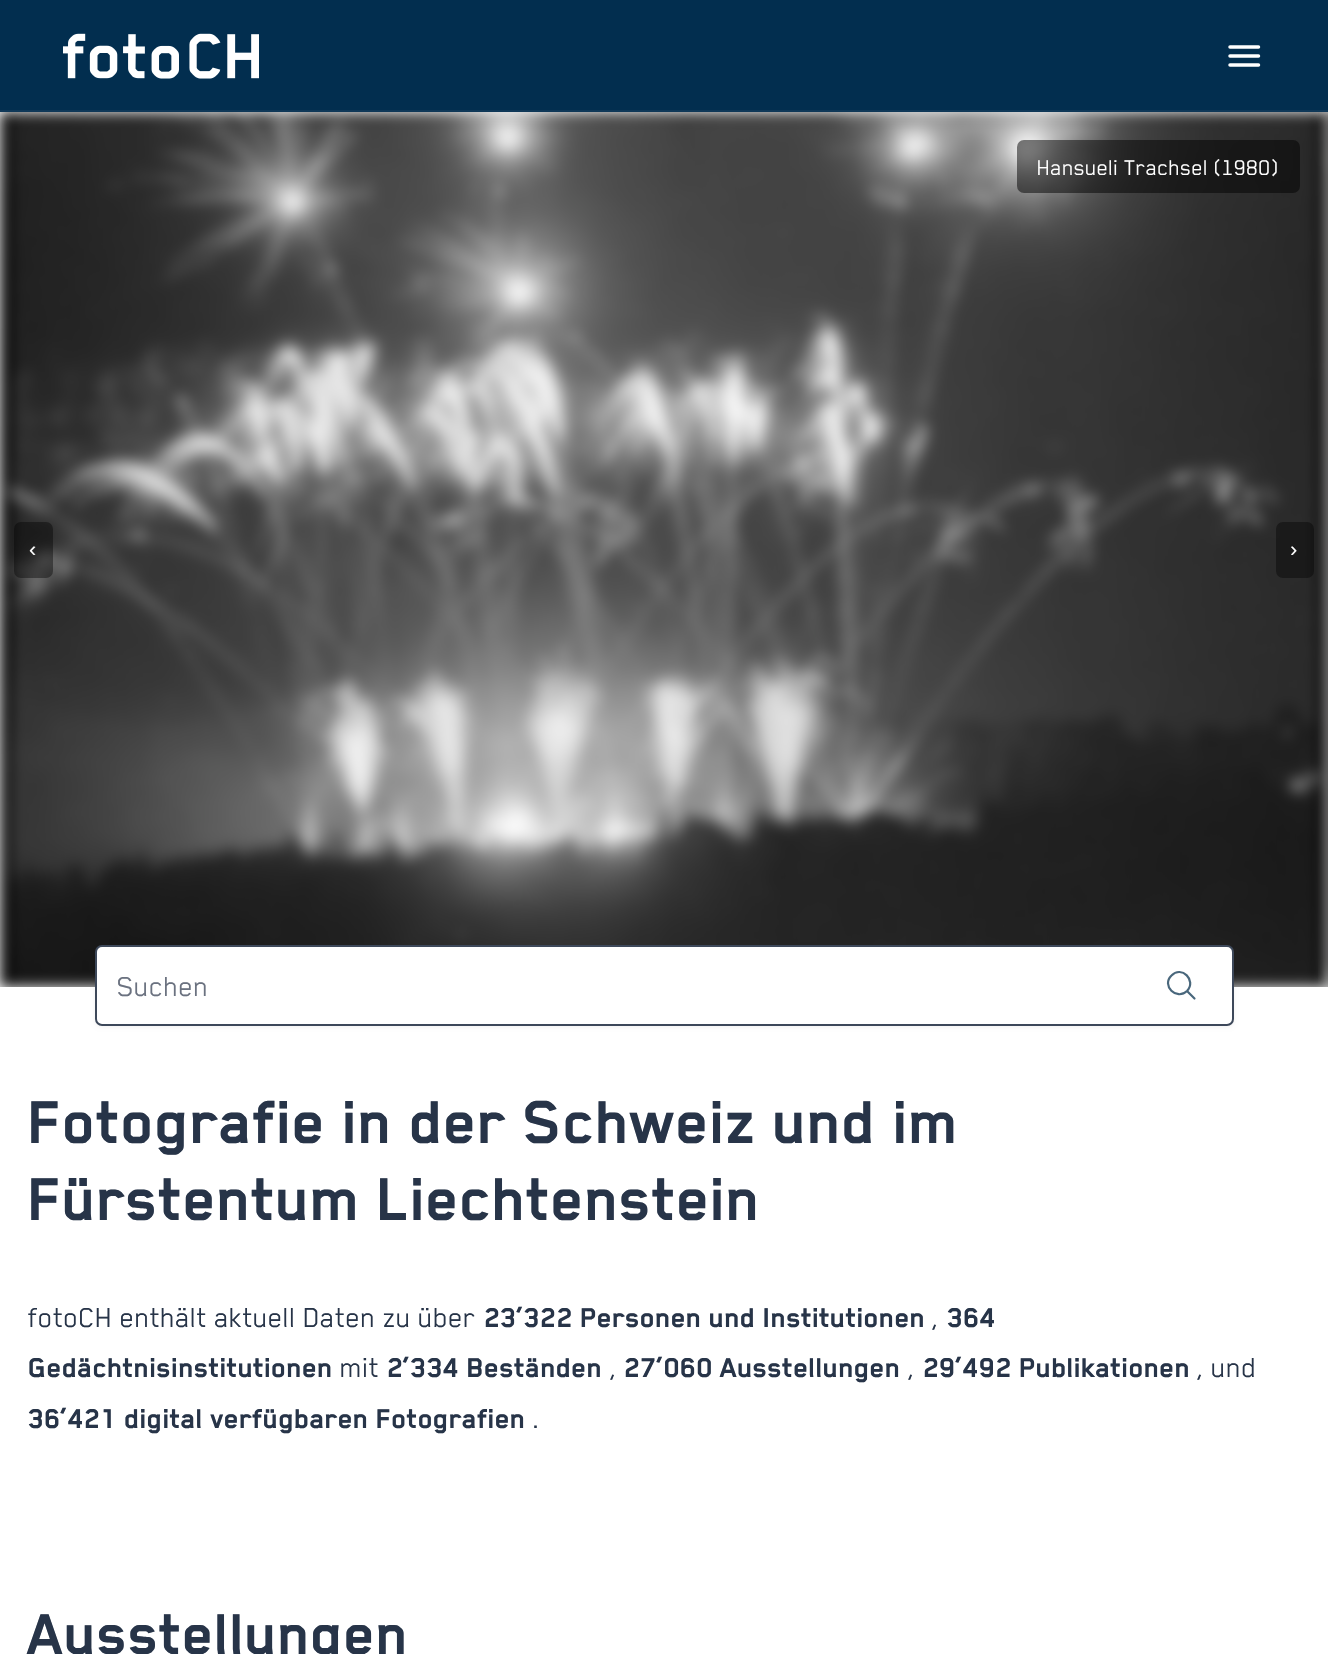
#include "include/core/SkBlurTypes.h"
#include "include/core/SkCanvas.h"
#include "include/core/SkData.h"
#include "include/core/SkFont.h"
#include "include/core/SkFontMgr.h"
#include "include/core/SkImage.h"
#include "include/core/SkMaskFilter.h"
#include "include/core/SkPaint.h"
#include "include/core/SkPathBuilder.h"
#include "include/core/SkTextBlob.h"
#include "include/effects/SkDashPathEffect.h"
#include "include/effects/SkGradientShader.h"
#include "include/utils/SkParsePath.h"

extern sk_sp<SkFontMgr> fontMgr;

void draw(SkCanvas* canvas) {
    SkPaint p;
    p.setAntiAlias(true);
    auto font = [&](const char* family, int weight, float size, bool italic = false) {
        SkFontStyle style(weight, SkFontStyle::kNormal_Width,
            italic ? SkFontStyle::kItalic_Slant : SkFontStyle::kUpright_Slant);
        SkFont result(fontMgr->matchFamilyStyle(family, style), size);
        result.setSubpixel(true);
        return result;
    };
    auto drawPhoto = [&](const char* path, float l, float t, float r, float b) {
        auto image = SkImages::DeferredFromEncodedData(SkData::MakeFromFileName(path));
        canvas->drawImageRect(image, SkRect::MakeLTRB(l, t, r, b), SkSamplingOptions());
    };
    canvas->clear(0xFFFFFFFF);
    p.setColor(0xFF022E4F);
    canvas->drawRect(SkRect::MakeLTRB(0, 0, 1328, 110), p);
    p.setColor(0xFF0F3858);
    canvas->drawRect(SkRect::MakeLTRB(0, 110, 1328, 112), p);
    drawPhoto("media/1.png", 63, 33, 259, 79);
    p.setStyle(SkPaint::kStroke_Style);
    p.setStrokeWidth(3.5f);
    p.setStrokeCap(SkPaint::kRound_Cap);
    p.setStrokeJoin(SkPaint::kRound_Join);
    p.setColor(0xFFFFFFFF);
    canvas->drawPath(SkPathBuilder().moveTo(1230, 47).lineTo(1258.5f, 47).moveTo(1230, 56).lineTo(1258.5f, 56).moveTo(1230, 65).lineTo(1258.5f, 65).detach(), p);
    drawPhoto("media/2.png", 0, 112, 1328, 987);
    p.setStyle(SkPaint::kFill_Style);
    p.setColor(0x80000000);
    canvas->drawRoundRect(SkRect::MakeLTRB(1017, 140, 1300, 193), 7, 7, p);
    auto font1 = font("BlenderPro", 400, 24.5f);
    p.setColor(0xFFFFFFFF);
    canvas->drawString("Hansueli Trachsel (1980)", 1037, 175, font1, p);
    drawPhoto("media/3.png", 1318, 112, 1328, 987);
    p.setColor(0x66000000);
    canvas->drawRoundRect(SkRect::MakeLTRB(14, 522, 53, 578), 7, 7, p);
    auto font2 = font("BlenderPro", 400, 28);
    p.setColor(0xFFFFFFFF);
    canvas->drawString("‹", 28, 558, font2, p);
    p.setColor(0x66000000);
    canvas->drawRoundRect(SkRect::MakeLTRB(1276, 522, 1314, 578), 7, 7, p);
    p.setColor(0xFFFFFFFF);
    canvas->drawString("›", 1289, 558, font2, p);
    p.setColor(0x0D000000);
    p.setMaskFilter(SkMaskFilter::MakeBlur(kNormal_SkBlurStyle, 2));
    canvas->drawRoundRect(SkRect::MakeLTRB(95, 947, 1234, 1027), 7, 7, p);
    p.setMaskFilter(nullptr);
    p.setColor(0xFFFFFFFF);
    canvas->drawRoundRect(SkRect::MakeLTRB(96, 946, 1233, 1025), 6, 6, p);
    p.setStyle(SkPaint::kStroke_Style);
    p.setStrokeWidth(2);
    p.setStrokeCap(SkPaint::kButt_Cap);
    p.setStrokeJoin(SkPaint::kMiter_Join);
    p.setColor(0xFF3D485A);
    canvas->drawRoundRect(SkRect::MakeLTRB(96, 946, 1233, 1025), 6, 6, p);
    auto font3 = font("BlenderPro", 400, 31.5f);
    p.setStyle(SkPaint::kFill_Style);
    p.setColor(0xFF6B7280);
    canvas->drawString("Suchen", 117, 996, font3, p);
    p.setStyle(SkPaint::kStroke_Style);
    p.setStrokeWidth(2.2f);
    p.setStrokeCap(SkPaint::kRound_Cap);
    p.setStrokeJoin(SkPaint::kRound_Join);
    p.setColor(0xFF49677C);
    canvas->drawPath(SkPathBuilder().moveTo(1194.5f, 998.5f).lineTo(1187, 991).moveTo(1187, 991).cubicTo(1197, 980.5f, 1181.5f, 965, 1171.5f, 975.5f).cubicTo(1161, 985.5f, 1176.5f, 1001, 1187, 991).close().detach(), p);
    auto font4 = font("BlenderPro", 700, 70);
    p.setStyle(SkPaint::kFill_Style);
    p.setColor(0xFF273448);
    canvas->drawString("Fotografie in der Schweiz und im", 28, 1143, font4, p);
    canvas->drawString("Fürstentum Liechtenstein", 28, 1220, font4, p);
    canvas->drawString("fotoCH enthält aktuell Daten zu über", 28, 1327, font3, p);
    auto font5 = font("BlenderPro", 700, 31.5f);
    canvas->drawString("23’322 Personen und Institutionen", 484, 1327, font5, p);
    canvas->drawString(",", 932, 1327, font3, p);
    canvas->drawString("364", 947, 1327, font5, p);
    canvas->drawString("Gedächtnisinstitutionen", 28, 1377, font5, p);
    canvas->drawString("mit", 340, 1377, font3, p);
    canvas->drawString("2’334 Beständen", 387, 1377, font5, p);
    canvas->drawString(",", 610, 1377, font3, p);
    canvas->drawString("27’060 Ausstellungen", 624, 1377, font5, p);
    canvas->drawString(",", 908, 1377, font3, p);
    canvas->drawString("29’492 Publikationen", 923, 1377, font5, p);
    canvas->drawString(", und", 1197, 1377, font3, p);
    canvas->drawString("36’421 digital verfügbaren Fotografien", 28, 1428, font5, p);
    canvas->drawString(".", 533, 1428, font3, p);
    auto font6 = font("BlenderPro", 700, 66.5f);
    canvas->drawString("Ausstellungen", 28, 1654, font6, p);
}
